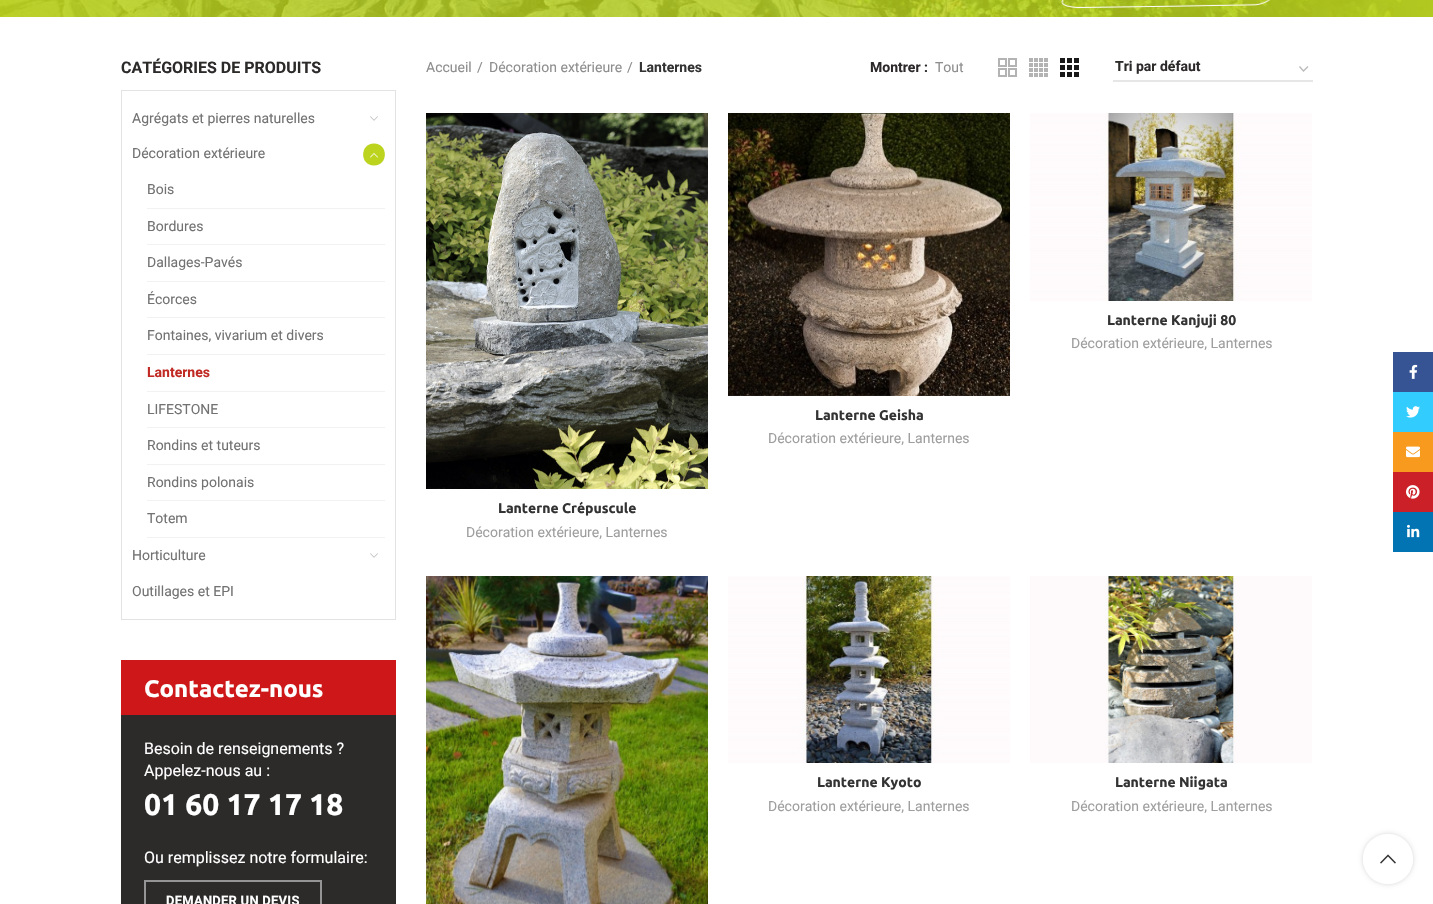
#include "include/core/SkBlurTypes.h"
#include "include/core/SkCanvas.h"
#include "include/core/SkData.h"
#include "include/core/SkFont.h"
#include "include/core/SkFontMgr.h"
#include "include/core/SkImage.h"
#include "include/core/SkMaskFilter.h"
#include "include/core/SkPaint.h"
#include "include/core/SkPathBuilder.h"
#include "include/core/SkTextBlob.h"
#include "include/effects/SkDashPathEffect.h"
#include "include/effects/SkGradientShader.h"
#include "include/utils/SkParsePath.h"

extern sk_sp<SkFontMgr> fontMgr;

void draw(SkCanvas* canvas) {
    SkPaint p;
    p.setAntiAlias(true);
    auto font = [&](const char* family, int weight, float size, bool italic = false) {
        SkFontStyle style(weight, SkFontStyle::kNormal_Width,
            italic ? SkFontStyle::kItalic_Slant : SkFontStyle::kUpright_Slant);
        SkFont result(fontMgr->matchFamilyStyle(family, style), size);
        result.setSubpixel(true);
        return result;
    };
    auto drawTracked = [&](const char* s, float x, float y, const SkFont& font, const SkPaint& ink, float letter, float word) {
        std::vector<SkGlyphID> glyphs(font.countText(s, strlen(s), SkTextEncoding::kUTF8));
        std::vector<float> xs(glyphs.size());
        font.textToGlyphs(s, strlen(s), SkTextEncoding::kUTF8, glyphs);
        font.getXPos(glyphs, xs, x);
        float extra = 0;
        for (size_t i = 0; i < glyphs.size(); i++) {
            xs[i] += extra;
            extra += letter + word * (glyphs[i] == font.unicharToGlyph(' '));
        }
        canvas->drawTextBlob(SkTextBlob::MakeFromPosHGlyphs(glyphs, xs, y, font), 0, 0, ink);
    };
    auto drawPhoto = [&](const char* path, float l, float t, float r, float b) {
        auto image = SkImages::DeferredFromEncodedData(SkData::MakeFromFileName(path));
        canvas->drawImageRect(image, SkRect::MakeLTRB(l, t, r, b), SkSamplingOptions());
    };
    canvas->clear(0xFFFFFFFF);
    drawPhoto("media/1.png", 0, 0, 1433, 17);
    auto font1 = font("Roboto", 700, 16);
    p.setColor(0xFF2D2A2A);
    canvas->drawString("CATÉGORIES DE PRODUITS", 121, 73, font1, p);
    p.setStyle(SkPaint::kStroke_Style);
    p.setStrokeWidth(1);
    p.setColor(0xFFE3E3E3);
    canvas->drawRect(SkRect::MakeLTRB(121.5f, 90.5f, 395.5f, 619.5f), p);
    auto font2 = font("Roboto", 400, 14);
    p.setStyle(SkPaint::kFill_Style);
    p.setColor(0xFF727272);
    canvas->drawString("Agrégats et pierres naturelles", 132, 123, font2, p);
    drawPhoto("media/2.png", 370, 116, 378, 121);
    canvas->drawString("Décoration extérieure", 132, 158, font2, p);
    p.setColor(0xFFBCD41E);
    canvas->drawPath(SkPathBuilder().moveTo(374, 165.5f).cubicTo(359.5f, 165.5f, 359.5f, 143.5f, 374, 143.5f).cubicTo(388.5f, 143.5f, 388.5f, 165.5f, 374, 165.5f).close().detach(), p);
    drawPhoto("media/3.png", 370, 153, 378, 158);
    p.setColor(0xFFF2F2F2);
    canvas->drawRect(SkRect::MakeLTRB(147, 208, 385, 209), p);
    p.setColor(0xFF727272);
    canvas->drawString("Bois", 147, 194, font2, p);
    p.setColor(0xFFF2F2F2);
    canvas->drawRect(SkRect::MakeLTRB(147, 244, 385, 245), p);
    p.setColor(0xFF727272);
    canvas->drawString("Bordures", 147, 231, font2, p);
    p.setColor(0xFFF2F2F2);
    canvas->drawRect(SkRect::MakeLTRB(147, 281, 385, 282), p);
    p.setColor(0xFF727272);
    canvas->drawString("Dallages-Pavés", 147, 267, font2, p);
    p.setColor(0xFFF2F2F2);
    canvas->drawRect(SkRect::MakeLTRB(147, 317, 385, 318), p);
    p.setColor(0xFF727272);
    canvas->drawString("Écorces", 147, 304, font2, p);
    p.setColor(0xFFF2F2F2);
    canvas->drawRect(SkRect::MakeLTRB(147, 354, 385, 355), p);
    p.setColor(0xFF727272);
    canvas->drawString("Fontaines, vivarium et divers", 147, 340, font2, p);
    p.setColor(0xFFF2F2F2);
    canvas->drawRect(SkRect::MakeLTRB(147, 391, 385, 392), p);
    auto font3 = font("Roboto", 700, 14);
    p.setColor(0xFFC02A23);
    canvas->drawString("Lanternes", 147, 377, font3, p);
    p.setColor(0xFFF2F2F2);
    canvas->drawRect(SkRect::MakeLTRB(147, 427, 385, 428), p);
    p.setColor(0xFF727272);
    canvas->drawString("LIFESTONE", 147, 414, font2, p);
    p.setColor(0xFFF2F2F2);
    canvas->drawRect(SkRect::MakeLTRB(147, 464, 385, 465), p);
    p.setColor(0xFF727272);
    canvas->drawString("Rondins et tuteurs", 147, 450, font2, p);
    p.setColor(0xFFF2F2F2);
    canvas->drawRect(SkRect::MakeLTRB(147, 500, 385, 501), p);
    p.setColor(0xFF727272);
    canvas->drawString("Rondins polonais", 147, 487, font2, p);
    p.setColor(0xFFF2F2F2);
    canvas->drawRect(SkRect::MakeLTRB(147, 537, 385, 538), p);
    p.setColor(0xFF727272);
    canvas->drawString("Totem", 147, 523, font2, p);
    canvas->drawString("Horticulture", 132, 560, font2, p);
    drawPhoto("media/2.png", 370, 553, 378, 558);
    canvas->drawString("Outillages et EPI", 132, 596, font2, p);
    p.setColor(0xFFCD1719);
    canvas->drawRect(SkRect::MakeLTRB(121, 660, 396, 715), p);
    auto font4 = font("Ubuntu", 700, 24);
    p.setColor(0xFFFFFFFF);
    canvas->drawString("Contactez-nous", 144, 697, font4, p);
    p.setColor(0xFF2C2B2A);
    canvas->drawRect(SkRect::MakeLTRB(121, 715, 396, 904), p);
    auto font5 = font("Roboto", 400, 16);
    p.setColor(0xFFFFFFFF);
    canvas->drawString("Besoin de renseignements ?", 144, 754, font5, p);
    canvas->drawString("Appelez-nous au :", 144, 776, font5, p);
    auto font6 = font("Ubuntu", 700, 30);
    canvas->drawString("01 60 17 17 18", 144, 815, font6, p);
    canvas->drawString("Ou remplissez notre formulaire:", 144, 863, font5, p);
    p.setStyle(SkPaint::kStroke_Style);
    p.setStrokeWidth(2);
    p.setColor(0xFF969595);
    canvas->drawRect(SkRect::MakeLTRB(145, 881, 321, 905), p);
    auto font7 = font("Roboto", 700, 13);
    p.setStyle(SkPaint::kFill_Style);
    p.setColor(0xFFFFFFFF);
    drawTracked("DEMANDER UN DEVIS", 166, 905, font7, p, 0.25f, 0);
    p.setColor(0xFF8E8E8E);
    {
        const struct { const char* s; float x, y; } items[] = {
            {"Accueil", 426, 72},
            {"/", 477, 72},
            {"Décoration extérieure", 489, 72},
            {"/", 627, 72},
        };
        for (auto [s, x, y] : items) {
            canvas->drawString(s, x, y, font2, p);
        }
    }
    p.setColor(0xFF333333);
    canvas->drawString("Lanternes", 639, 72, font3, p);
    p.setColor(0xFF2D2A2A);
    canvas->drawString("Montrer :", 870, 72, font3, p);
    p.setColor(0xFF8E8E8E);
    canvas->drawString("Tout", 935, 72, font2, p);
    drawPhoto("media/4.png", 998, 58, 1017, 77);
    drawPhoto("media/5.png", 1029, 58, 1048, 77);
    drawPhoto("media/6.png", 1060, 58, 1079, 77);
    p.setStyle(SkPaint::kStroke_Style);
    p.setStrokeWidth(1.4f);
    p.setColor(0xFFBBBBBB);
    canvas->drawPath(SkPathBuilder().moveTo(1299.5f, 66.5f).lineTo(1303.5f, 71).lineTo(1308, 66.5f).detach(), p);
    p.setStyle(SkPaint::kFill_Style);
    p.setColor(0xFFE6E6E6);
    canvas->drawRect(SkRect::MakeLTRB(1113, 80, 1313, 82), p);
    p.setColor(0xFF2D2A2A);
    canvas->drawString("Tri par défaut", 1115, 71, font3, p);
    drawPhoto("media/7.png", 1030, 113, 1312, 301);
    auto font8 = font("Ubuntu", 700, 14);
    p.setColor(0xFF333333);
    canvas->drawString("Lanterne Kanjuji 80", 1107, 325, font8, p);
    p.setColor(0xFF9E9E9E);
    canvas->drawString("Décoration extérieure, Lanternes", 1071, 348, font2, p);
    drawPhoto("media/8.png", 728, 113, 1010, 396);
    p.setColor(0xFF333333);
    canvas->drawString("Lanterne Geisha", 815, 420, font8, p);
    p.setColor(0xFF9E9E9E);
    canvas->drawString("Décoration extérieure, Lanternes", 768, 443, font2, p);
    drawPhoto("media/9.png", 426, 113, 708, 489);
    p.setColor(0xFF333333);
    canvas->drawString("Lanterne Crépuscule", 498, 513, font8, p);
    p.setColor(0xFF9E9E9E);
    canvas->drawString("Décoration extérieure, Lanternes", 466, 537, font2, p);
    drawPhoto("media/10.png", 426, 576, 708, 904);
    drawPhoto("media/11.png", 728, 576, 1010, 763);
    p.setColor(0xFF333333);
    canvas->drawString("Lanterne Kyoto", 817, 787, font8, p);
    p.setColor(0xFF9E9E9E);
    canvas->drawString("Décoration extérieure, Lanternes", 768, 811, font2, p);
    drawPhoto("media/12.png", 1030, 576, 1312, 763);
    p.setColor(0xFF333333);
    canvas->drawString("Lanterne Niigata", 1115, 787, font8, p);
    p.setColor(0xFF9E9E9E);
    canvas->drawString("Décoration extérieure, Lanternes", 1071, 811, font2, p);
    p.setColor(0xFF365493);
    canvas->drawRect(SkRect::MakeLTRB(1393, 352, 1433, 392), p);
    drawPhoto("media/13.png", 1409, 364, 1418, 379);
    p.setColor(0xFF33CCFF);
    canvas->drawRect(SkRect::MakeLTRB(1393, 392, 1433, 432), p);
    drawPhoto("media/14.png", 1406, 406, 1420, 418);
    p.setColor(0xFFF89A1E);
    canvas->drawRect(SkRect::MakeLTRB(1393, 432, 1433, 472), p);
    drawPhoto("media/15.png", 1406, 446, 1420, 458);
    p.setColor(0xFFCB2027);
    canvas->drawRect(SkRect::MakeLTRB(1393, 472, 1433, 512), p);
    drawPhoto("media/16.png", 1406, 485, 1420, 499);
    p.setColor(0xFF0274B3);
    canvas->drawRect(SkRect::MakeLTRB(1393, 512, 1433, 552), p);
    drawPhoto("media/17.png", 1407, 524, 1420, 538);
    canvas->save();
    canvas->clipPath(SkPathBuilder(SkPathFillType::kEvenOdd).moveTo(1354, 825).lineTo(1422, 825).lineTo(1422, 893).lineTo(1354, 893).close().moveTo(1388, 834).cubicTo(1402, 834, 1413, 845, 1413, 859).cubicTo(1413, 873, 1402, 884, 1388, 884).cubicTo(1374, 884, 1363, 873, 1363, 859).cubicTo(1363, 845, 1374, 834, 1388, 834).close().detach(), true);
    p.setColor(0x2B000000);
    p.setMaskFilter(SkMaskFilter::MakeBlur(kNormal_SkBlurStyle, 2.5f));
    canvas->drawRoundRect(SkRect::MakeLTRB(1363, 834, 1413, 884), 25, 25, p);
    p.setMaskFilter(nullptr);
    canvas->restore();
    p.setColor(0xE6FFFFFF);
    canvas->drawCircle(1388, 859, 25, p);
    drawPhoto("media/18.png", 1380, 854, 1396, 864);
}
